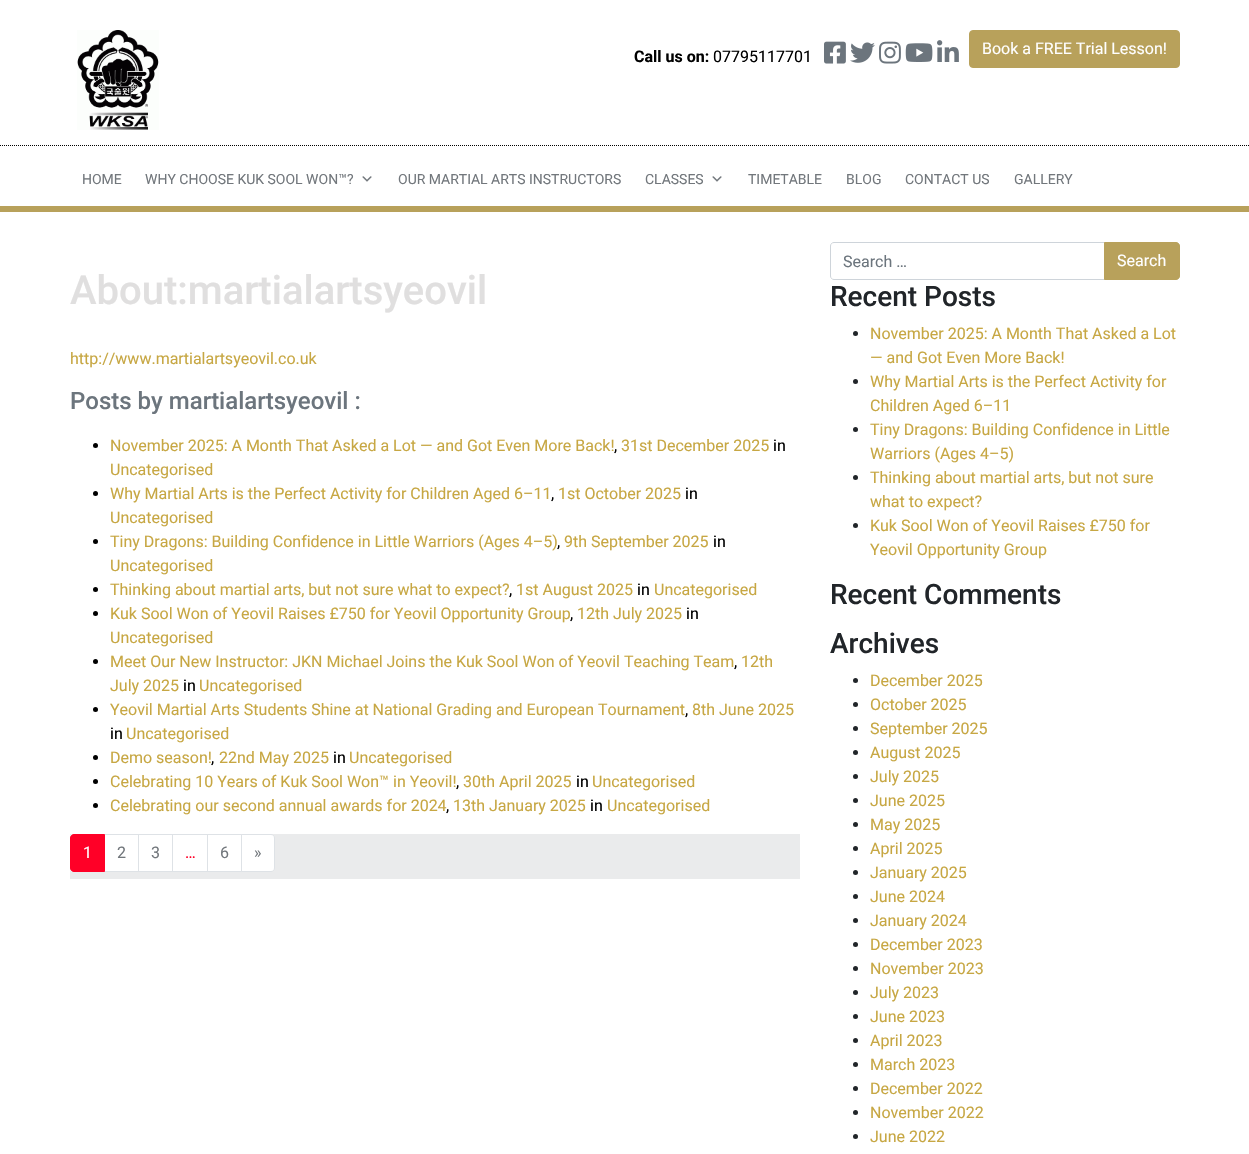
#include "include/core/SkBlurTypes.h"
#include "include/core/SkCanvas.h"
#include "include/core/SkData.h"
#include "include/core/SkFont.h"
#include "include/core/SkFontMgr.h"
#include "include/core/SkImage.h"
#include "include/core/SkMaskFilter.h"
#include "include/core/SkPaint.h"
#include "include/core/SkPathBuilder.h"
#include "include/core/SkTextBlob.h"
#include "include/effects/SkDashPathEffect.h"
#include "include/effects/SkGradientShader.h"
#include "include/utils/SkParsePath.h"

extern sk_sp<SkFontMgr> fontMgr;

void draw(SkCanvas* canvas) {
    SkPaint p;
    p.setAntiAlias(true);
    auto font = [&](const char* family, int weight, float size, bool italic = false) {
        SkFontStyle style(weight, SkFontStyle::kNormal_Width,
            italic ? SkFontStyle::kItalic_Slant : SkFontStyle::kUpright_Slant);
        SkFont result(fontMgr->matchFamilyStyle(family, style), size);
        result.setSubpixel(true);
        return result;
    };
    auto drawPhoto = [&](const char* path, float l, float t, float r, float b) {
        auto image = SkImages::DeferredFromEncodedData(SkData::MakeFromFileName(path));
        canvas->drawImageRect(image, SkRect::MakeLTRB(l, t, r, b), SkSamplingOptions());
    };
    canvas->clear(0xFFFFFFFF);
    drawPhoto("media/1.png", 77, 30, 159, 130);
    p.setColor(0xFFB8A15B);
    canvas->drawRoundRect(SkRect::MakeLTRB(969.5f, 30.5f, 1179.5f, 67.5f), 3.5f, 3.5f, p);
    p.setStyle(SkPaint::kStroke_Style);
    p.setStrokeWidth(1);
    canvas->drawRoundRect(SkRect::MakeLTRB(969.5f, 30.5f, 1179.5f, 67.5f), 3.5f, 3.5f, p);
    auto font1 = font("Roboto", 400, 16);
    p.setStyle(SkPaint::kFill_Style);
    p.setColor(0xFFFFFFFF);
    canvas->drawString("Book a FREE Trial Lesson!", 982, 54, font1, p);
    auto font2 = font("Roboto", 700, 16);
    p.setColor(0xFF000000);
    canvas->drawString("Call us on:", 634, 62, font2, p);
    canvas->drawString("07795117701", 713, 62, font1, p);
    drawPhoto("media/2.png", 824, 41, 846, 64);
    drawPhoto("media/3.png", 850, 42, 875, 63);
    drawPhoto("media/4.png", 879, 41, 901, 64);
    drawPhoto("media/5.png", 905, 43, 933, 62);
    drawPhoto("media/6.png", 937, 40, 959, 62);
    p.setStyle(SkPaint::kStroke_Style);
    p.setPathEffect(SkDashPathEffect::Make({{1, 1}}, 0));
    canvas->drawPath(SkPathBuilder().moveTo(0, 145.5f).lineTo(1249, 145.5f).detach(), p);
    p.setPathEffect(nullptr);
    p.setStyle(SkPaint::kFill_Style);
    p.setColor(0xFFB8A15B);
    canvas->drawRect(SkRect::MakeLTRB(0, 206, 1249, 212), p);
    auto font3 = font("Roboto", 400, 14);
    p.setColor(0xFF72777C);
    canvas->drawString("HOME", 82, 184, font3, p);
    canvas->drawString("WHY CHOOSE KUK SOOL WON™?", 145, 184, font3, p);
    drawPhoto("media/7.png", 362, 176, 372, 182);
    canvas->drawString("OUR MARTIAL ARTS INSTRUCTORS", 398, 184, font3, p);
    canvas->drawString("CLASSES", 645, 184, font3, p);
    drawPhoto("media/7.png", 712, 176, 722, 182);
    {
        const struct { const char* s; float x, y; } items[] = {
            {"TIMETABLE", 748, 184},
            {"BLOG", 846, 184},
            {"CONTACT US", 905, 184},
            {"GALLERY", 1014, 184},
        };
        for (auto [s, x, y] : items) {
            canvas->drawString(s, x, y, font3, p);
        }
    }
    auto font4 = font("Roboto", 500, 40);
    p.setColor(0xFFE0DFDF);
    canvas->drawString("About:martialartsyeovil", 70, 304, font4, p);
    p.setColor(0xFFC7A743);
    canvas->drawString("http://www.martialartsyeovil.co.uk", 70, 364, font1, p);
    auto font5 = font("Roboto", 500, 24);
    p.setColor(0xFF6C757D);
    canvas->drawString("Posts by martialartsyeovil :", 70, 409, font5, p);
    p.setColor(0xFF000000);
    canvas->drawCircle(95.5f, 445.5f, 2.5f, p);
    p.setColor(0xFFC7A743);
    canvas->drawString("November 2025: A Month That Asked a Lot — and Got Even More Back!", 110, 451, font1, p);
    canvas->drawString("31st December 2025", 621, 451, font1, p);
    p.setColor(0xFF000000);
    canvas->drawString("in", 773, 451, font1, p);
    canvas->drawString(",", 614, 451, font1, p);
    p.setColor(0xFFC7A743);
    canvas->drawString("Uncategorised", 110, 475, font1, p);
    p.setColor(0xFF000000);
    canvas->drawCircle(95.5f, 493.5f, 2.5f, p);
    p.setColor(0xFFC7A743);
    canvas->drawString("Why Martial Arts is the Perfect Activity for Children Aged 6–11", 110, 499, font1, p);
    canvas->drawString("1st October 2025", 558, 499, font1, p);
    p.setColor(0xFF000000);
    canvas->drawString("in", 685, 499, font1, p);
    canvas->drawString(",", 551, 499, font1, p);
    p.setColor(0xFFC7A743);
    canvas->drawString("Uncategorised", 110, 523, font1, p);
    p.setColor(0xFF000000);
    canvas->drawCircle(95.5f, 541.5f, 2.5f, p);
    p.setColor(0xFFC7A743);
    canvas->drawString("Tiny Dragons: Building Confidence in Little Warriors (Ages 4–5)", 110, 547, font1, p);
    canvas->drawString("9th September 2025", 564, 547, font1, p);
    p.setColor(0xFF000000);
    canvas->drawString("in", 713, 547, font1, p);
    canvas->drawString(",", 557, 547, font1, p);
    p.setColor(0xFFC7A743);
    canvas->drawString("Uncategorised", 110, 571, font1, p);
    p.setColor(0xFF000000);
    canvas->drawCircle(95.5f, 589.5f, 2.5f, p);
    p.setColor(0xFFC7A743);
    canvas->drawString("Thinking about martial arts, but not sure what to expect?", 110, 595, font1, p);
    canvas->drawString("1st August 2025", 516, 595, font1, p);
    p.setColor(0xFF000000);
    canvas->drawString("in", 637, 595, font1, p);
    p.setColor(0xFFC7A743);
    canvas->drawString("Uncategorised", 654, 595, font1, p);
    p.setColor(0xFF000000);
    canvas->drawString(",", 509, 595, font1, p);
    canvas->drawCircle(95.5f, 613.5f, 2.5f, p);
    p.setColor(0xFFC7A743);
    canvas->drawString("Kuk Sool Won of Yeovil Raises £750 for Yeovil Opportunity Group", 110, 619, font1, p);
    canvas->drawString("12th July 2025", 577, 619, font1, p);
    p.setColor(0xFF000000);
    canvas->drawString("in", 686, 619, font1, p);
    canvas->drawString(",", 570, 619, font1, p);
    p.setColor(0xFFC7A743);
    canvas->drawString("Uncategorised", 110, 643, font1, p);
    p.setColor(0xFF000000);
    canvas->drawCircle(95.5f, 661.5f, 2.5f, p);
    p.setColor(0xFFC7A743);
    canvas->drawString("Meet Our New Instructor: JKN Michael Joins the Kuk Sool Won of Yeovil Teaching Team", 110, 667, font1, p);
    canvas->drawString("12th", 741, 667, font1, p);
    p.setColor(0xFF000000);
    canvas->drawString(",", 734, 667, font1, p);
    p.setColor(0xFFC7A743);
    canvas->drawString("July 2025", 110, 691, font1, p);
    p.setColor(0xFF000000);
    canvas->drawString("in", 183, 691, font1, p);
    p.setColor(0xFFC7A743);
    canvas->drawString("Uncategorised", 199, 691, font1, p);
    p.setColor(0xFF000000);
    canvas->drawCircle(95.5f, 709.5f, 2.5f, p);
    p.setColor(0xFFC7A743);
    canvas->drawString("Yeovil Martial Arts Students Shine at National Grading and European Tournament", 110, 715, font1, p);
    canvas->drawString("8th June 2025", 692, 715, font1, p);
    p.setColor(0xFF000000);
    canvas->drawString(",", 685, 715, font1, p);
    canvas->drawString("in", 110, 739, font1, p);
    p.setColor(0xFFC7A743);
    canvas->drawString("Uncategorised", 126, 739, font1, p);
    p.setColor(0xFF000000);
    canvas->drawCircle(95.5f, 757.5f, 2.5f, p);
    p.setColor(0xFFC7A743);
    canvas->drawString("Demo season!", 110, 763, font1, p);
    canvas->drawString("22nd May 2025", 219, 763, font1, p);
    p.setColor(0xFF000000);
    canvas->drawString("in", 333, 763, font1, p);
    p.setColor(0xFFC7A743);
    canvas->drawString("Uncategorised", 349, 763, font1, p);
    p.setColor(0xFF000000);
    canvas->drawString(",", 211, 763, font1, p);
    canvas->drawCircle(95.5f, 781.5f, 2.5f, p);
    p.setColor(0xFFC7A743);
    canvas->drawString("Celebrating 10 Years of Kuk Sool Won™ in Yeovil!", 110, 787, font1, p);
    canvas->drawString("30th April 2025", 463, 787, font1, p);
    p.setColor(0xFF000000);
    canvas->drawString("in", 576, 787, font1, p);
    p.setColor(0xFFC7A743);
    canvas->drawString("Uncategorised", 592, 787, font1, p);
    p.setColor(0xFF000000);
    canvas->drawString(",", 456, 787, font1, p);
    canvas->drawCircle(95.5f, 805.5f, 2.5f, p);
    p.setColor(0xFFC7A743);
    canvas->drawString("Celebrating our second annual awards for 2024", 110, 811, font1, p);
    canvas->drawString("13th January 2025", 453, 811, font1, p);
    p.setColor(0xFF000000);
    canvas->drawString("in", 590, 811, font1, p);
    p.setColor(0xFFC7A743);
    canvas->drawString("Uncategorised", 607, 811, font1, p);
    p.setColor(0xFF000000);
    canvas->drawString(",", 446, 811, font1, p);
    p.setColor(0xFFEAEBEC);
    canvas->drawRect(SkRect::MakeLTRB(70, 834, 800, 879), p);
    p.setColor(0xFFFFFFFF);
    canvas->drawRect(SkRect::MakeLTRB(104.5f, 834.5f, 138.5f, 871.5f), p);
    p.setStyle(SkPaint::kStroke_Style);
    p.setColor(0xFFDEE2E6);
    canvas->drawRect(SkRect::MakeLTRB(104.5f, 834.5f, 138.5f, 871.5f), p);
    p.setStyle(SkPaint::kFill_Style);
    p.setColor(0xFFFF0027);
    canvas->drawPath(SkPathBuilder().moveTo(74, 834.5f).lineTo(104.5f, 834.5f).lineTo(104.5f, 871.5f).lineTo(74, 871.5f).cubicTo(72, 871.5f, 70.5f, 870, 70.5f, 868).lineTo(70.5f, 838).cubicTo(70.5f, 836, 72, 834.5f, 74, 834.5f).close().detach(), p);
    p.setStyle(SkPaint::kStroke_Style);
    canvas->drawPath(SkPathBuilder().moveTo(74, 834.5f).lineTo(104.5f, 834.5f).lineTo(104.5f, 871.5f).lineTo(74, 871.5f).cubicTo(72, 871.5f, 70.5f, 870, 70.5f, 868).lineTo(70.5f, 838).cubicTo(70.5f, 836, 72, 834.5f, 74, 834.5f).close().detach(), p);
    p.setStyle(SkPaint::kFill_Style);
    p.setColor(0xFFFFFFFF);
    canvas->drawString("1", 83, 858, font1, p);
    p.setColor(0xFF72777C);
    canvas->drawString("2", 117, 858, font1, p);
    p.setColor(0xFFFFFFFF);
    canvas->drawRect(SkRect::MakeLTRB(138.5f, 834.5f, 172.5f, 871.5f), p);
    p.setStyle(SkPaint::kStroke_Style);
    p.setColor(0xFFDEE2E6);
    canvas->drawRect(SkRect::MakeLTRB(138.5f, 834.5f, 172.5f, 871.5f), p);
    p.setStyle(SkPaint::kFill_Style);
    p.setColor(0xFF72777C);
    canvas->drawString("3", 151, 858, font1, p);
    p.setColor(0xFFFFFFFF);
    canvas->drawRect(SkRect::MakeLTRB(172.5f, 834.5f, 207.5f, 871.5f), p);
    p.setStyle(SkPaint::kStroke_Style);
    p.setColor(0xFFDEE2E6);
    canvas->drawRect(SkRect::MakeLTRB(172.5f, 834.5f, 207.5f, 871.5f), p);
    p.setStyle(SkPaint::kFill_Style);
    p.setColor(0xFFFFFFFF);
    canvas->drawRect(SkRect::MakeLTRB(207.5f, 834.5f, 241.5f, 871.5f), p);
    p.setStyle(SkPaint::kStroke_Style);
    p.setColor(0xFFDEE2E6);
    canvas->drawRect(SkRect::MakeLTRB(207.5f, 834.5f, 241.5f, 871.5f), p);
    p.setStyle(SkPaint::kFill_Style);
    p.setColor(0xFF72777C);
    canvas->drawString("6", 220, 858, font1, p);
    p.setColor(0xFFFFFFFF);
    canvas->drawPath(SkPathBuilder().moveTo(241.5f, 834.5f).lineTo(271, 834.5f).cubicTo(273, 834.5f, 274.5f, 836, 274.5f, 838).lineTo(274.5f, 868).cubicTo(274.5f, 870, 273, 871.5f, 271, 871.5f).lineTo(241.5f, 871.5f).close().detach(), p);
    p.setStyle(SkPaint::kStroke_Style);
    p.setColor(0xFFDEE2E6);
    canvas->drawPath(SkPathBuilder().moveTo(241.5f, 834.5f).lineTo(271, 834.5f).cubicTo(273, 834.5f, 274.5f, 836, 274.5f, 838).lineTo(274.5f, 868).cubicTo(274.5f, 870, 273, 871.5f, 271, 871.5f).lineTo(241.5f, 871.5f).close().detach(), p);
    p.setStyle(SkPaint::kFill_Style);
    p.setColor(0xFF72777C);
    canvas->drawString("»", 254, 858, font1, p);
    p.setColor(0xFFFF0027);
    canvas->drawString("…", 185, 858, font1, p);
    p.setStyle(SkPaint::kStroke_Style);
    p.setColor(0xFFCED4DA);
    canvas->drawPath(SkPathBuilder().moveTo(834, 242.5f).lineTo(1104.5f, 242.5f).lineTo(1104.5f, 279.5f).lineTo(834, 279.5f).cubicTo(832, 279.5f, 830.5f, 278, 830.5f, 276).lineTo(830.5f, 246).cubicTo(830.5f, 244, 832, 242.5f, 834, 242.5f).close().detach(), p);
    p.setStyle(SkPaint::kFill_Style);
    p.setColor(0xFF6C757D);
    canvas->drawString("Search …", 843, 267, font1, p);
    p.setColor(0xFFB8A15B);
    canvas->drawPath(SkPathBuilder().moveTo(1104.5f, 242.5f).lineTo(1176, 242.5f).cubicTo(1178, 242.5f, 1179.5f, 244, 1179.5f, 246).lineTo(1179.5f, 276).cubicTo(1179.5f, 278, 1178, 279.5f, 1176, 279.5f).lineTo(1104.5f, 279.5f).close().detach(), p);
    p.setStyle(SkPaint::kStroke_Style);
    canvas->drawPath(SkPathBuilder().moveTo(1104.5f, 242.5f).lineTo(1176, 242.5f).cubicTo(1178, 242.5f, 1179.5f, 244, 1179.5f, 246).lineTo(1179.5f, 276).cubicTo(1179.5f, 278, 1178, 279.5f, 1176, 279.5f).lineTo(1104.5f, 279.5f).close().detach(), p);
    p.setStyle(SkPaint::kFill_Style);
    p.setColor(0xFFFFFFFF);
    canvas->drawString("Search", 1117, 266, font1, p);
    auto font6 = font("Roboto", 500, 28);
    p.setColor(0xFF212529);
    canvas->drawString("Recent Posts", 830, 306, font6, p);
    canvas->drawCircle(855.5f, 333.5f, 2.5f, p);
    p.setColor(0xFFC7A743);
    canvas->drawString("November 2025: A Month That Asked a Lot", 870, 339, font1, p);
    canvas->drawString("— and Got Even More Back!", 870, 363, font1, p);
    p.setColor(0xFF212529);
    canvas->drawCircle(855.5f, 381.5f, 2.5f, p);
    p.setColor(0xFFC7A743);
    canvas->drawString("Why Martial Arts is the Perfect Activity for", 870, 387, font1, p);
    canvas->drawString("Children Aged 6–11", 870, 411, font1, p);
    p.setColor(0xFF212529);
    canvas->drawCircle(855.5f, 429.5f, 2.5f, p);
    p.setColor(0xFFC7A743);
    canvas->drawString("Tiny Dragons: Building Confidence in Little", 870, 435, font1, p);
    canvas->drawString("Warriors (Ages 4–5)", 870, 459, font1, p);
    p.setColor(0xFF212529);
    canvas->drawCircle(855.5f, 477.5f, 2.5f, p);
    p.setColor(0xFFC7A743);
    canvas->drawString("Thinking about martial arts, but not sure", 870, 483, font1, p);
    canvas->drawString("what to expect?", 870, 507, font1, p);
    p.setColor(0xFF212529);
    canvas->drawCircle(855.5f, 525.5f, 2.5f, p);
    p.setColor(0xFFC7A743);
    canvas->drawString("Kuk Sool Won of Yeovil Raises £750 for", 870, 531, font1, p);
    canvas->drawString("Yeovil Opportunity Group", 870, 555, font1, p);
    p.setColor(0xFF212529);
    canvas->drawString("Recent Comments", 830, 604, font6, p);
    canvas->drawString("Archives", 830, 653, font6, p);
    canvas->drawCircle(855.5f, 680.5f, 2.5f, p);
    p.setColor(0xFFC7A743);
    canvas->drawString("December 2025", 870, 686, font1, p);
    p.setColor(0xFF212529);
    canvas->drawCircle(855.5f, 704.5f, 2.5f, p);
    p.setColor(0xFFC7A743);
    canvas->drawString("October 2025", 870, 710, font1, p);
    p.setColor(0xFF212529);
    canvas->drawCircle(855.5f, 728.5f, 2.5f, p);
    p.setColor(0xFFC7A743);
    canvas->drawString("September 2025", 870, 734, font1, p);
    p.setColor(0xFF212529);
    canvas->drawCircle(855.5f, 752.5f, 2.5f, p);
    p.setColor(0xFFC7A743);
    canvas->drawString("August 2025", 870, 758, font1, p);
    p.setColor(0xFF212529);
    canvas->drawCircle(855.5f, 776.5f, 2.5f, p);
    p.setColor(0xFFC7A743);
    canvas->drawString("July 2025", 870, 782, font1, p);
    p.setColor(0xFF212529);
    canvas->drawCircle(855.5f, 800.5f, 2.5f, p);
    p.setColor(0xFFC7A743);
    canvas->drawString("June 2025", 870, 806, font1, p);
    p.setColor(0xFF212529);
    canvas->drawCircle(855.5f, 824.5f, 2.5f, p);
    p.setColor(0xFFC7A743);
    canvas->drawString("May 2025", 870, 830, font1, p);
    p.setColor(0xFF212529);
    canvas->drawCircle(855.5f, 848.5f, 2.5f, p);
    p.setColor(0xFFC7A743);
    canvas->drawString("April 2025", 870, 854, font1, p);
    p.setColor(0xFF212529);
    canvas->drawCircle(855.5f, 872.5f, 2.5f, p);
    p.setColor(0xFFC7A743);
    canvas->drawString("January 2025", 870, 878, font1, p);
    p.setColor(0xFF212529);
    canvas->drawCircle(855.5f, 896.5f, 2.5f, p);
    p.setColor(0xFFC7A743);
    canvas->drawString("June 2024", 870, 902, font1, p);
    p.setColor(0xFF212529);
    canvas->drawCircle(855.5f, 920.5f, 2.5f, p);
    p.setColor(0xFFC7A743);
    canvas->drawString("January 2024", 870, 926, font1, p);
    p.setColor(0xFF212529);
    canvas->drawCircle(855.5f, 944.5f, 2.5f, p);
    p.setColor(0xFFC7A743);
    canvas->drawString("December 2023", 870, 950, font1, p);
    p.setColor(0xFF212529);
    canvas->drawCircle(855.5f, 968.5f, 2.5f, p);
    p.setColor(0xFFC7A743);
    canvas->drawString("November 2023", 870, 974, font1, p);
    p.setColor(0xFF212529);
    canvas->drawCircle(855.5f, 992.5f, 2.5f, p);
    p.setColor(0xFFC7A743);
    canvas->drawString("July 2023", 870, 998, font1, p);
    p.setColor(0xFF212529);
    canvas->drawCircle(855.5f, 1016.5f, 2.5f, p);
    p.setColor(0xFFC7A743);
    canvas->drawString("June 2023", 870, 1022, font1, p);
    p.setColor(0xFF212529);
    canvas->drawCircle(855.5f, 1040.5f, 2.5f, p);
    p.setColor(0xFFC7A743);
    canvas->drawString("April 2023", 870, 1046, font1, p);
    p.setColor(0xFF212529);
    canvas->drawCircle(855.5f, 1064.5f, 2.5f, p);
    p.setColor(0xFFC7A743);
    canvas->drawString("March 2023", 870, 1070, font1, p);
    p.setColor(0xFF212529);
    canvas->drawCircle(855.5f, 1088.5f, 2.5f, p);
    p.setColor(0xFFC7A743);
    canvas->drawString("December 2022", 870, 1094, font1, p);
    p.setColor(0xFF212529);
    canvas->drawCircle(855.5f, 1112.5f, 2.5f, p);
    p.setColor(0xFFC7A743);
    canvas->drawString("November 2022", 870, 1118, font1, p);
    p.setColor(0xFF212529);
    canvas->drawCircle(855.5f, 1136.5f, 2.5f, p);
    p.setColor(0xFFC7A743);
    canvas->drawString("June 2022", 870, 1142, font1, p);
}
